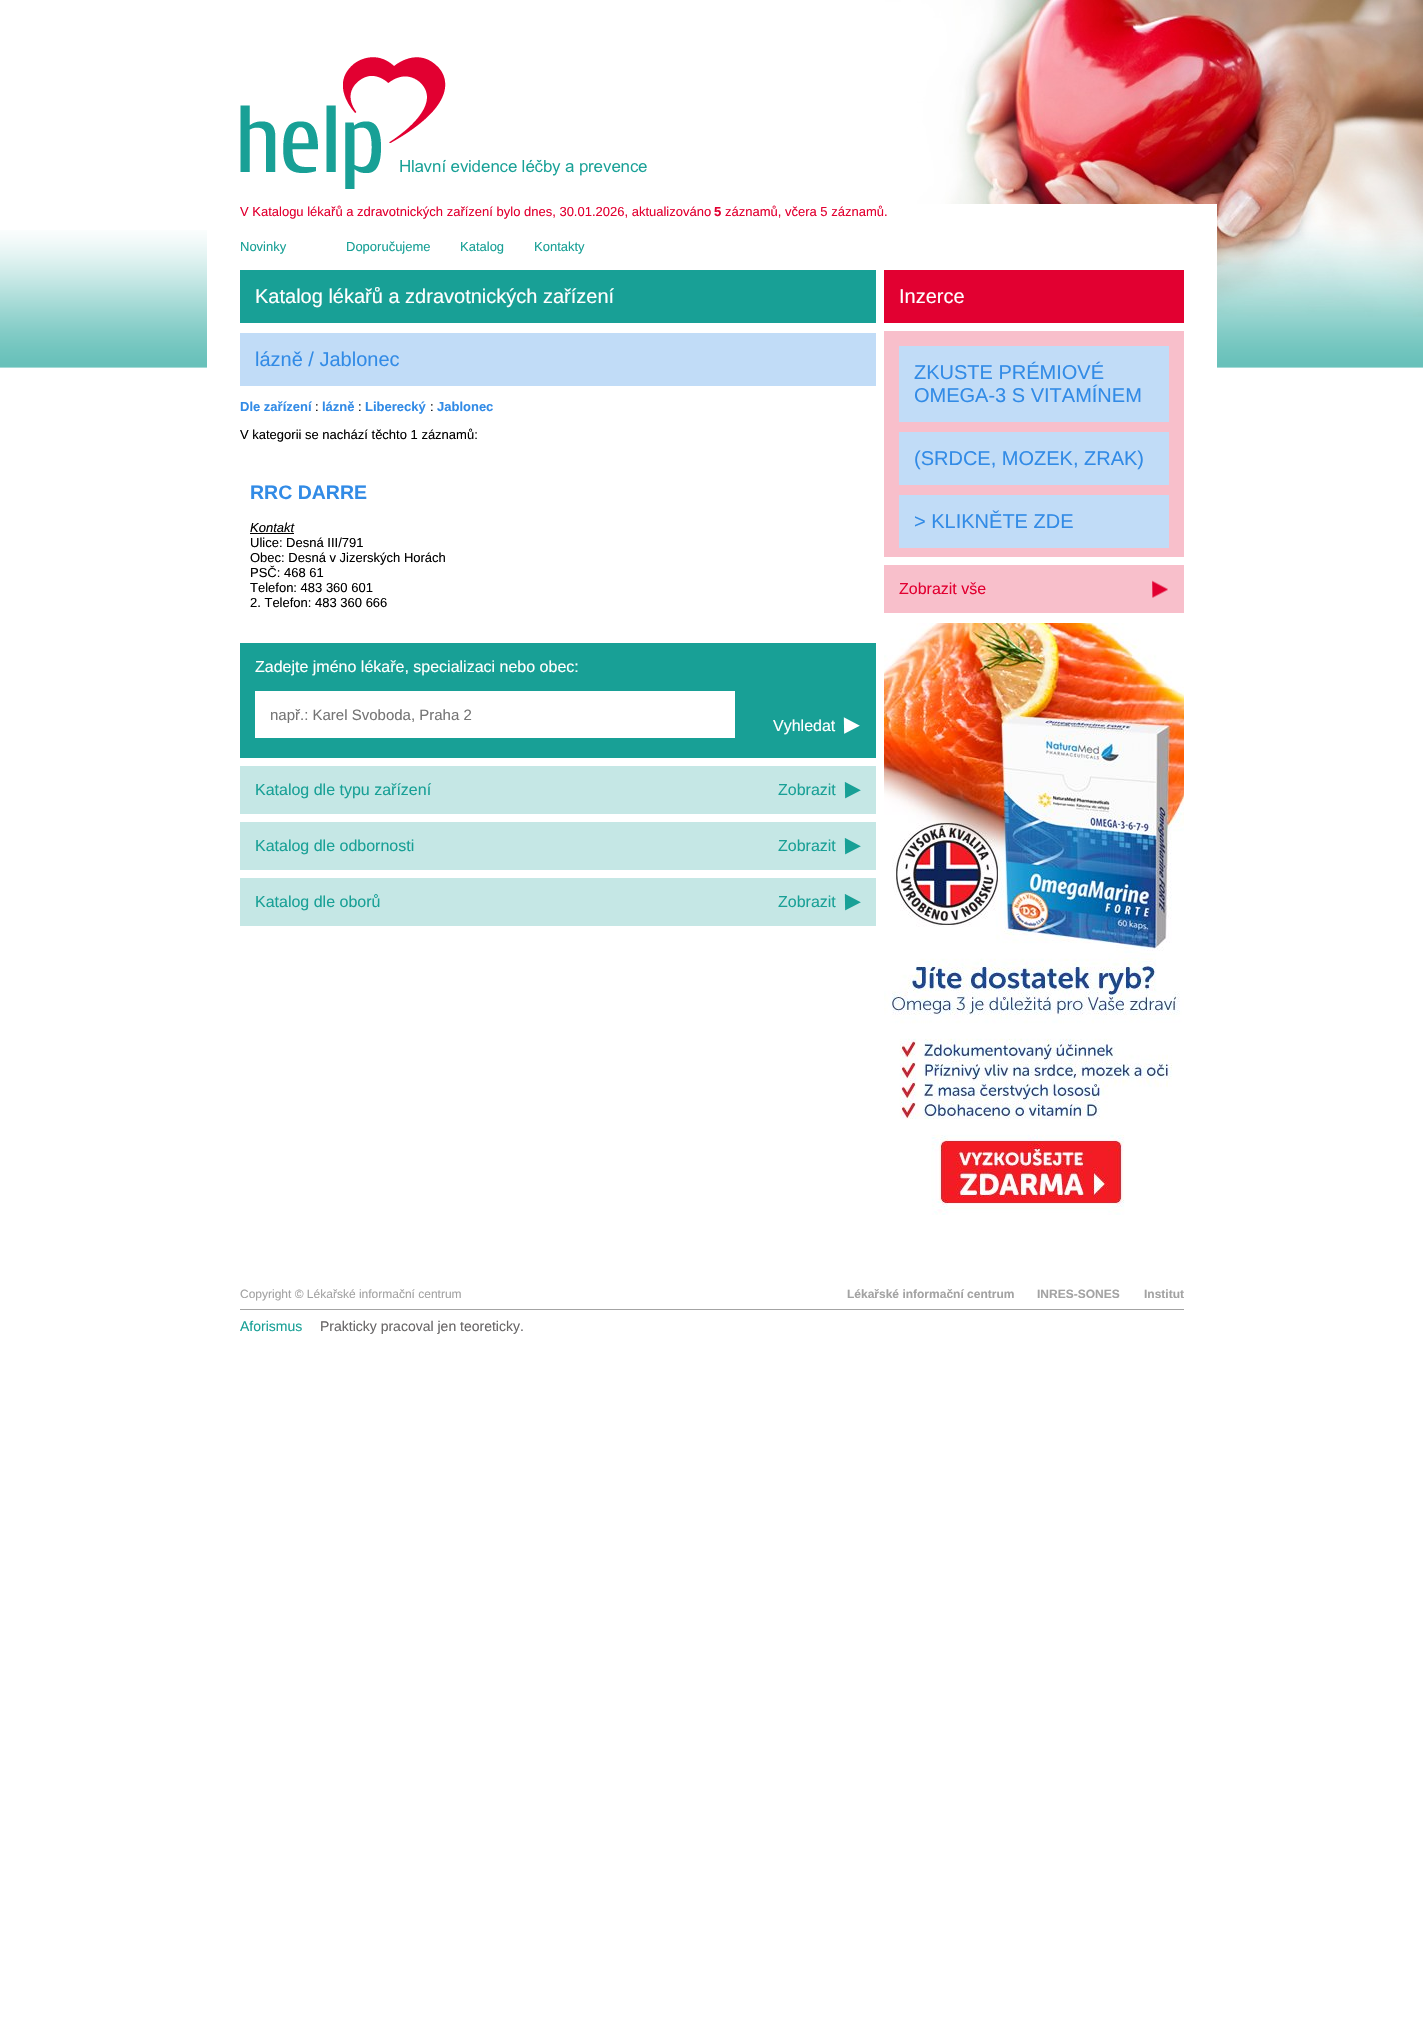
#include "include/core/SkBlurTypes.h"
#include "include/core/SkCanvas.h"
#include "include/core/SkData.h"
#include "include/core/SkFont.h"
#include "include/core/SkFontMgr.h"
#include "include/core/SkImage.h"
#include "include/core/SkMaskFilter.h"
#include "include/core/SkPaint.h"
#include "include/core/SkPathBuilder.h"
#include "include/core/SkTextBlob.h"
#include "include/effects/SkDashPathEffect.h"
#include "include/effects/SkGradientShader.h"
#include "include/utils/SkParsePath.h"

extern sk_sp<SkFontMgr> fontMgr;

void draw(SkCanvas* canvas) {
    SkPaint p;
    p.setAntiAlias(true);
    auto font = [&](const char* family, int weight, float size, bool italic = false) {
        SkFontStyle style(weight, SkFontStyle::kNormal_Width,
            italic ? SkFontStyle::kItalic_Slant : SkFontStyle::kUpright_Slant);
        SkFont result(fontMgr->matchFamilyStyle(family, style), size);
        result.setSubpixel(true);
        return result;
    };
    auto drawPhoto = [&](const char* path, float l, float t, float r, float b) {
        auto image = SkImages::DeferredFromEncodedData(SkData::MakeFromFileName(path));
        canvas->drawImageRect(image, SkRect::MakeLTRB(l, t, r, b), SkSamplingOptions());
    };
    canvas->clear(0xFFFFFFFF);
    drawPhoto("media/1.png", 0, 230, 1423, 368);
    drawPhoto("media/2.png", 240, 57, 647, 189);
    drawPhoto("media/3.png", 885, 0, 1423, 317);
    p.setColor(0xFFFFFFFF);
    canvas->drawRect(SkRect::MakeLTRB(207, 204, 1217, 368), p);
    auto font1 = font("Liberation Sans", 400, 13);
    p.setColor(0xFFE20031);
    canvas->drawString("V Katalogu lékařů a zdravotnických zařízení bylo dnes, 30.01.2026, aktualizováno", 240, 216, font1, p);
    auto font2 = font("Liberation Sans", 700, 13);
    canvas->drawString("5", 714, 216, font2, p);
    canvas->drawString("záznamů, včera 5 záznamů.", 725, 216, font1, p);
    p.setColor(0xFF18A096);
    {
        const struct { const char* s; float x, y; } items[] = {
            {"Novinky", 240, 251},
            {"Doporučujeme", 346, 251},
            {"Katalog", 460, 251},
            {"Kontakty", 534, 251},
        };
        for (auto [s, x, y] : items) {
            canvas->drawString(s, x, y, font1, p);
        }
    }
    canvas->drawRect(SkRect::MakeLTRB(240, 270, 876, 323), p);
    auto font3 = font("Liberation Sans", 400, 20);
    p.setColor(0xFFFFFFFF);
    canvas->drawString("Katalog lékařů a zdravotnických zařízení", 255, 303, font3, p);
    p.setColor(0xFFC1DCF7);
    canvas->drawRect(SkRect::MakeLTRB(240, 333, 876, 386), p);
    p.setColor(0xFF328BE6);
    canvas->drawString("lázně / Jablonec", 255, 366, font3, p);
    canvas->drawString("Dle zařízení", 240, 411, font2, p);
    p.setColor(0xFF000000);
    canvas->drawString(":", 315, 411, font1, p);
    p.setColor(0xFF328BE6);
    canvas->drawString("lázně", 322, 411, font2, p);
    p.setColor(0xFF000000);
    canvas->drawString(":", 358, 411, font1, p);
    p.setColor(0xFF328BE6);
    canvas->drawString("Liberecký", 365, 411, font2, p);
    p.setColor(0xFF000000);
    canvas->drawString(":", 430, 411, font1, p);
    p.setColor(0xFF328BE6);
    canvas->drawString("Jablonec", 437, 411, font2, p);
    p.setColor(0xFF000000);
    canvas->drawString("V kategorii se nachází těchto 1 záznamů:", 240, 439, font1, p);
    auto font4 = font("Liberation Sans", 700, 19.5f);
    p.setColor(0xFF328BE6);
    canvas->drawString("RRC DARRE", 250, 499, font4, p);
    auto font5 = font("Liberation Sans", 400, 13, true);
    p.setColor(0xFF000000);
    canvas->drawString("Kontakt", 250, 532, font5, p);
    canvas->drawRect(SkRect::MakeLTRB(250, 533, 294, 534), p);
    {
        const struct { const char* s; float x, y; } items[] = {
            {"Ulice: Desná III/791", 250, 547},
            {"Obec: Desná v Jizerských Horách", 250, 562},
            {"PSČ: 468 61", 250, 577},
            {"Telefon: 483 360 601", 250, 592},
            {"2. Telefon: 483 360 666", 250, 607},
        };
        for (auto [s, x, y] : items) {
            canvas->drawString(s, x, y, font1, p);
        }
    }
    p.setColor(0xFF18A096);
    canvas->drawRect(SkRect::MakeLTRB(240, 643, 876, 758), p);
    auto font6 = font("Liberation Sans", 400, 16);
    p.setColor(0xFFFFFFFF);
    canvas->drawString("Zadejte jméno lékaře, specializaci nebo obec:", 255, 672, font6, p);
    canvas->drawRect(SkRect::MakeLTRB(255, 691, 735, 738), p);
    auto font7 = font("Liberation Sans", 400, 15);
    p.setColor(0xFF757575);
    canvas->drawString("např.: Karel Svoboda, Praha 2", 270, 720, font7, p);
    drawPhoto("media/4.png", 843, 717, 860, 734);
    p.setColor(0xFFFFFFFF);
    canvas->drawString("Vyhledat", 773, 731, font6, p);
    p.setColor(0xFFC5E7E5);
    canvas->drawRect(SkRect::MakeLTRB(240, 766, 876, 814), p);
    drawPhoto("media/5.png", 844, 782, 861, 799);
    p.setColor(0xFF18A096);
    canvas->drawString("Katalog dle typu zařízení", 255, 795, font6, p);
    canvas->drawString("Zobrazit", 778, 795, font6, p);
    p.setColor(0xFFC5E7E5);
    canvas->drawRect(SkRect::MakeLTRB(240, 822, 876, 870), p);
    drawPhoto("media/5.png", 844, 838, 861, 855);
    p.setColor(0xFF18A096);
    canvas->drawString("Katalog dle odbornosti", 255, 851, font6, p);
    canvas->drawString("Zobrazit", 778, 851, font6, p);
    p.setColor(0xFFC5E7E5);
    canvas->drawRect(SkRect::MakeLTRB(240, 878, 876, 926), p);
    drawPhoto("media/5.png", 844, 894, 861, 911);
    p.setColor(0xFF18A096);
    canvas->drawString("Katalog dle oborů", 255, 907, font6, p);
    canvas->drawString("Zobrazit", 778, 907, font6, p);
    p.setColor(0xFFE20031);
    canvas->drawRect(SkRect::MakeLTRB(884, 270, 1184, 323), p);
    p.setColor(0xFFFFFFFF);
    canvas->drawString("Inzerce", 899, 303, font3, p);
    p.setColor(0xFFF8BFCB);
    canvas->drawRect(SkRect::MakeLTRB(884, 331, 1184, 557), p);
    p.setColor(0xFFC1DCF7);
    canvas->drawRect(SkRect::MakeLTRB(899, 346, 1169, 422), p);
    p.setColor(0xFF328BE6);
    canvas->drawString("ZKUSTE PRÉMIOVÉ", 914, 379, font3, p);
    canvas->drawString("OMEGA-3 S VITAMÍNEM", 914, 402, font3, p);
    p.setColor(0xFFC1DCF7);
    canvas->drawRect(SkRect::MakeLTRB(899, 432, 1169, 485), p);
    p.setColor(0xFF328BE6);
    canvas->drawString("(SRDCE, MOZEK, ZRAK)", 914, 465, font3, p);
    p.setColor(0xFFC1DCF7);
    canvas->drawRect(SkRect::MakeLTRB(899, 495, 1169, 548), p);
    p.setColor(0xFF328BE6);
    canvas->drawString("> KLIKNĚTE ZDE", 914, 528, font3, p);
    p.setColor(0xFFF8BFCB);
    canvas->drawRect(SkRect::MakeLTRB(884, 565, 1184, 613), p);
    drawPhoto("media/6.png", 1152, 580, 1168, 598);
    p.setColor(0xFFE20031);
    canvas->drawString("Zobrazit vše", 899, 594, font6, p);
    drawPhoto("media/7.png", 884, 623, 1184, 1215);
    p.setColor(0xFFA3A3A3);
    canvas->drawRect(SkRect::MakeLTRB(240, 1309, 1184, 1310), p);
    auto font8 = font("Liberation Sans", 400, 12);
    canvas->drawString("Copyright © Lékařské informační centrum", 240, 1298, font8, p);
    auto font9 = font("Liberation Sans", 700, 12);
    {
        const struct { const char* s; float x, y; } items[] = {
            {"Lékařské informační centrum", 847, 1298},
            {"INRES-SONES", 1037, 1298},
            {"Institut", 1144, 1298},
        };
        for (auto [s, x, y] : items) {
            canvas->drawString(s, x, y, font9, p);
        }
    }
    auto font10 = font("Liberation Sans", 400, 14);
    p.setColor(0xFF18A096);
    canvas->drawString("Aforismus", 240, 1331, font10, p);
    p.setColor(0xFF686667);
    canvas->drawString("Prakticky pracoval jen teoreticky.", 320, 1331, font10, p);
}
